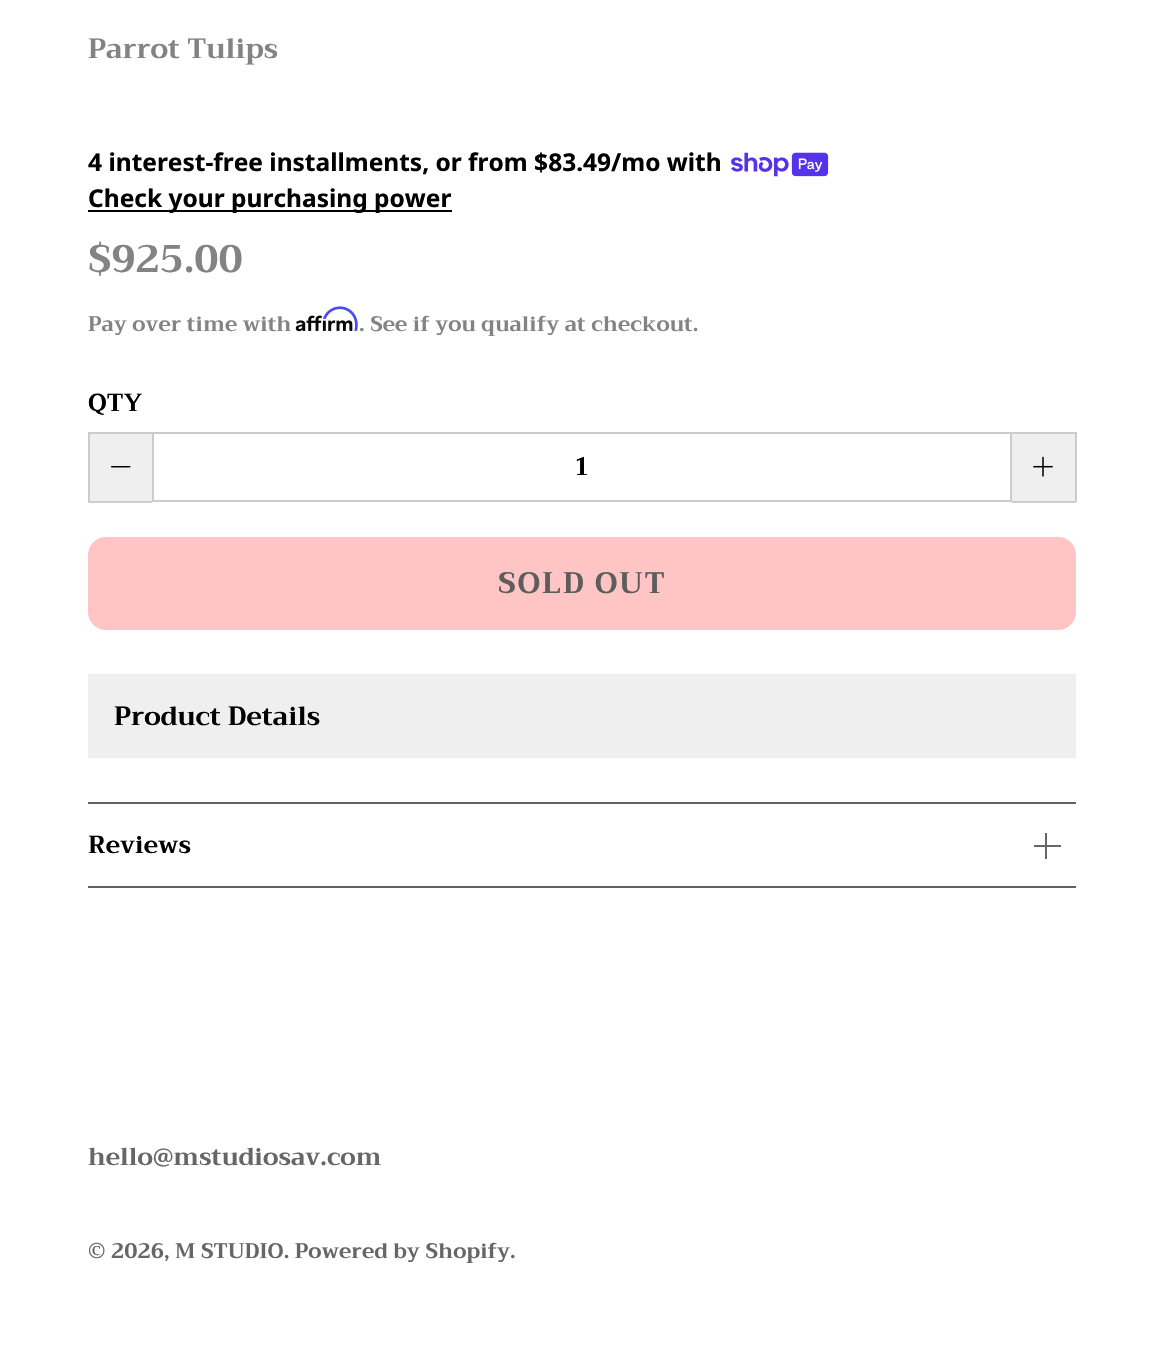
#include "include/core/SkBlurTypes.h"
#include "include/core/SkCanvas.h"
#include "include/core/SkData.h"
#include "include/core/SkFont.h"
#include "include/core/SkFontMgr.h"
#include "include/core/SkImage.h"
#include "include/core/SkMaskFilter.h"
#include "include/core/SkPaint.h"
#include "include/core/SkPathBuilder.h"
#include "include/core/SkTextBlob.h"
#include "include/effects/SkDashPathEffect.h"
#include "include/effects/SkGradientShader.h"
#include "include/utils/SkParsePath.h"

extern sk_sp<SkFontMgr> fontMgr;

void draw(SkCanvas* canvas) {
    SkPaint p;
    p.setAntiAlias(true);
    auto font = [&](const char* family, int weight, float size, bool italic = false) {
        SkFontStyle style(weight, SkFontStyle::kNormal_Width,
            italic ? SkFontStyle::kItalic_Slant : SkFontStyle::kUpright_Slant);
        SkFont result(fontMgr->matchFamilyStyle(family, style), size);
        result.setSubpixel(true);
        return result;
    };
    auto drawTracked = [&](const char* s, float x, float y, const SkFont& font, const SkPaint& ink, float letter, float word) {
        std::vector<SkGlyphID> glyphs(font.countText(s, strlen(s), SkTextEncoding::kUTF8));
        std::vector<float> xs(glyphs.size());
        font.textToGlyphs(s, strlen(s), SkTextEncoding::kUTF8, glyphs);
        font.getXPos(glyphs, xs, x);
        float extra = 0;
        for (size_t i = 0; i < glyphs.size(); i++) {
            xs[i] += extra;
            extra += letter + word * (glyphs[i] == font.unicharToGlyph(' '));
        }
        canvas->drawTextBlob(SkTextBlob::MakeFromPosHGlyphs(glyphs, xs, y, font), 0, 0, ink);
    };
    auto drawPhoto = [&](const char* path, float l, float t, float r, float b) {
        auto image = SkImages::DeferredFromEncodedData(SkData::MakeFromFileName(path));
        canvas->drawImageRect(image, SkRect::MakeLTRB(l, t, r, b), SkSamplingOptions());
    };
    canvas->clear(0xFFFFFFFF);
    auto font1 = font("Trirong", 700, 28);
    p.setColor(0xFF838383);
    canvas->drawString("Parrot Tulips", 88, 58, font1, p);
    auto font2 = font("Noto Sans", 700, 24.5f);
    p.setColor(0xFF000000);
    canvas->drawString("4 interest-free installments, or from $83.49/mo with", 88, 171, font2, p);
    drawPhoto("media/1.png", 731, 152, 829, 177);
    canvas->drawRect(SkRect::MakeLTRB(88, 210, 452, 212), p);
    canvas->drawString("Check your purchasing power", 88, 207, font2, p);
    auto font3 = font("Trirong", 700, 38.5f);
    p.setColor(0xFF838383);
    canvas->drawString("$925.00", 88, 272, font3, p);
    auto font4 = font("Trirong", 700, 21);
    canvas->drawString("Pay over time with", 88, 331, font4, p);
    drawPhoto("media/3.png", 295, 315, 353, 332);
    drawPhoto("media/2.png", 323, 306, 358, 331);
    canvas->drawString(". See if you qualify at checkout.", 359, 331, font4, p);
    auto font5 = font("Trirong", 700, 24.5f);
    p.setColor(0xFF000000);
    canvas->drawString("QTY", 88, 411, font5, p);
    {
        const struct { float l, t, r, b; SkColor color; } items[] = {
            {90, 434, 152, 501, 0xFFEFEFEF},
            {88, 432, 152, 434, 0xFFCCCCCC},
            {88, 501, 152, 503, 0xFFCCCCCC},
            {88, 432, 90, 502, 0xFFCCCCCC},
        };
        for (auto [l, t, r, b, color] : items) {
            p.setColor(color);
            canvas->drawRect(SkRect::MakeLTRB(l, t, r, b), p);
        }
    }
    drawPhoto("media/4.png", 111, 466, 131, 468);
    p.setStyle(SkPaint::kStroke_Style);
    p.setStrokeWidth(2);
    canvas->drawRect(SkRect::MakeLTRB(153, 433, 1011, 501), p);
    p.setStyle(SkPaint::kFill_Style);
    p.setColor(0xFF000000);
    canvas->drawString("1", 574, 475, font5, p);
    {
        const struct { float l, t, r, b; SkColor color; } items[] = {
            {1012, 434, 1075, 501, 0xFFEFEFEF},
            {1012, 432, 1076, 434, 0xFFCCCCCC},
            {1075, 432, 1077, 502, 0xFFCCCCCC},
            {1012, 501, 1076, 503, 0xFFCCCCCC},
        };
        for (auto [l, t, r, b, color] : items) {
            p.setColor(color);
            canvas->drawRect(SkRect::MakeLTRB(l, t, r, b), p);
        }
    }
    drawPhoto("media/5.png", 1033, 456, 1053, 477);
    p.setColor(0xFFFFC5C5);
    canvas->drawRoundRect(SkRect::MakeLTRB(90, 539, 1074, 628), 16, 16, p);
    p.setStyle(SkPaint::kStroke_Style);
    p.setStrokeWidth(4);
    canvas->drawRoundRect(SkRect::MakeLTRB(90, 539, 1074, 628), 16, 16, p);
    auto font6 = font("Trirong", 700, 29.75f);
    p.setStyle(SkPaint::kFill_Style);
    p.setColor(0xFF5D5D5D);
    drawTracked("SOLD OUT", 498, 593, font6, p, 1.5f, 0);
    p.setColor(0xFFEFEFEF);
    canvas->drawRect(SkRect::MakeLTRB(88, 674, 1076, 758), p);
    auto font7 = font("Trirong", 700, 26.25f);
    p.setColor(0xFF000000);
    canvas->drawString("Product Details", 114, 725, font7, p);
    p.setColor(0xFF626262);
    canvas->drawRect(SkRect::MakeLTRB(88, 802, 1076, 804), p);
    canvas->drawRect(SkRect::MakeLTRB(88, 886, 1076, 888), p);
    p.setColor(0xFF000000);
    canvas->drawString("Reviews", 88, 853, font5, p);
    p.setColor(0xFF666666);
    canvas->drawRect(SkRect::MakeLTRB(1045, 833, 1047, 859), p);
    canvas->drawRect(SkRect::MakeLTRB(1034, 845, 1061, 847), p);
    canvas->drawString("hello@mstudiosav.com", 88, 1165, font5, p);
    canvas->drawString("© 2026, M STUDIO. Powered by Shopify.", 88, 1258, font4, p);
}
